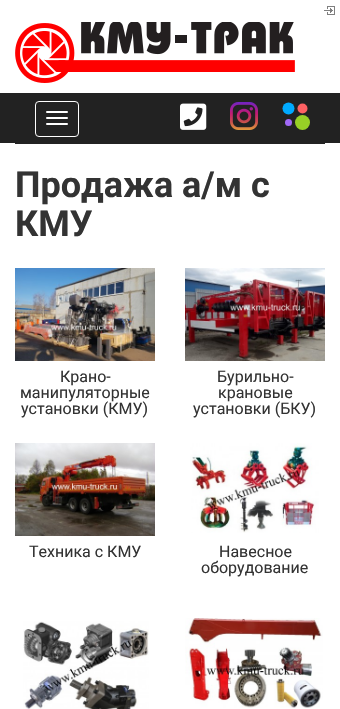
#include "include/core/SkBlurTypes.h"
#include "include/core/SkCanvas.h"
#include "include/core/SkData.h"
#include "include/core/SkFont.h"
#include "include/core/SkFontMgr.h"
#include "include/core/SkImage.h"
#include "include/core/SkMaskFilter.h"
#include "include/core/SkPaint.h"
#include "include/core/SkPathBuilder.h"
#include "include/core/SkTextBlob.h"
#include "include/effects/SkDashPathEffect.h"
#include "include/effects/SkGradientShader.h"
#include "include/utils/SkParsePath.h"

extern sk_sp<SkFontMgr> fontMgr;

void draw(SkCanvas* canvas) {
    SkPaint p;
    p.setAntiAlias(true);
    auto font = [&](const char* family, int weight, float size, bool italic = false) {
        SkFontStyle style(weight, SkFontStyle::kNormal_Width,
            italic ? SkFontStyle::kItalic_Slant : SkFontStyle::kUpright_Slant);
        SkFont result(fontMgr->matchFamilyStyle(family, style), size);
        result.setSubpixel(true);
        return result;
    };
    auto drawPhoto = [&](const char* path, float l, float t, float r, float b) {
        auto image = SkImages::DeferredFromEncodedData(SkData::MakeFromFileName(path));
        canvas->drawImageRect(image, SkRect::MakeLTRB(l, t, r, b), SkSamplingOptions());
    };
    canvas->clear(0xFFFFFFFF);
    drawPhoto("media/1.png", 324, 6, 335, 15);
    drawPhoto("media/2.png", 15, 22, 295, 83);
    p.setColor(0xFF222222);
    canvas->drawRect(SkRect::MakeLTRB(0, 93, 340, 143), p);
    canvas->drawRect(SkRect::MakeLTRB(15, 143, 325, 144), p);
    p.setStyle(SkPaint::kStroke_Style);
    p.setStrokeWidth(1);
    p.setColor(0xFFFFFFFF);
    canvas->drawRoundRect(SkRect::MakeLTRB(35.5f, 101.5f, 78.5f, 136.5f), 3.5f, 3.5f, p);
    p.setStyle(SkPaint::kFill_Style);
    canvas->drawRoundRect(SkRect::MakeLTRB(46, 111, 68, 113), 1, 1, p);
    canvas->drawRoundRect(SkRect::MakeLTRB(46, 117, 68, 119), 1, 1, p);
    canvas->drawRoundRect(SkRect::MakeLTRB(46, 123, 68, 125), 1, 1, p);
    drawPhoto("media/3.png", 180, 103, 207, 130);
    drawPhoto("media/4.png", 230, 102, 258, 130);
    p.setColor(0xFF00AAFF);
    canvas->drawCircle(288.5f, 108.5f, 6, p);
    p.setColor(0xFFFF6163);
    canvas->drawCircle(302.5f, 108.5f, 5, p);
    p.setColor(0xFFA169F7);
    canvas->drawCircle(288.5f, 122.5f, 3.5f, p);
    p.setColor(0xFF97CF26);
    canvas->drawCircle(302.5f, 122.5f, 7.5f, p);
    auto font1 = font("Roboto", 700, 36);
    p.setColor(0xFF333333);
    canvas->drawString("Продажа а/м с", 15, 197, font1, p);
    canvas->drawString("КМУ", 15, 236, font1, p);
    drawPhoto("media/5.png", 15, 268, 155, 361);
    auto font2 = font("Roboto", 400, 16);
    {
        const struct { const char* s; float x, y; } items[] = {
            {"Крано-", 60, 382},
            {"манипуляторные", 20, 398},
            {"установки (КМУ)", 21, 414},
        };
        for (auto [s, x, y] : items) {
            canvas->drawString(s, x, y, font2, p);
        }
    }
    drawPhoto("media/6.png", 185, 268, 325, 361);
    {
        const struct { const char* s; float x, y; } items[] = {
            {"Бурильно-", 217, 382},
            {"крановые", 218, 398},
            {"установки (БКУ)", 193, 414},
        };
        for (auto [s, x, y] : items) {
            canvas->drawString(s, x, y, font2, p);
        }
    }
    drawPhoto("media/7.png", 15, 443, 155, 536);
    canvas->drawString("Техника с КМУ", 29, 557, font2, p);
    drawPhoto("media/8.png", 190, 443, 319, 533);
    canvas->drawString("Навесное", 219, 557, font2, p);
    canvas->drawString("оборудование", 201, 573, font2, p);
    drawPhoto("media/9.png", 23, 621, 149, 709);
    drawPhoto("media/10.png", 185, 618, 323, 708);
}
